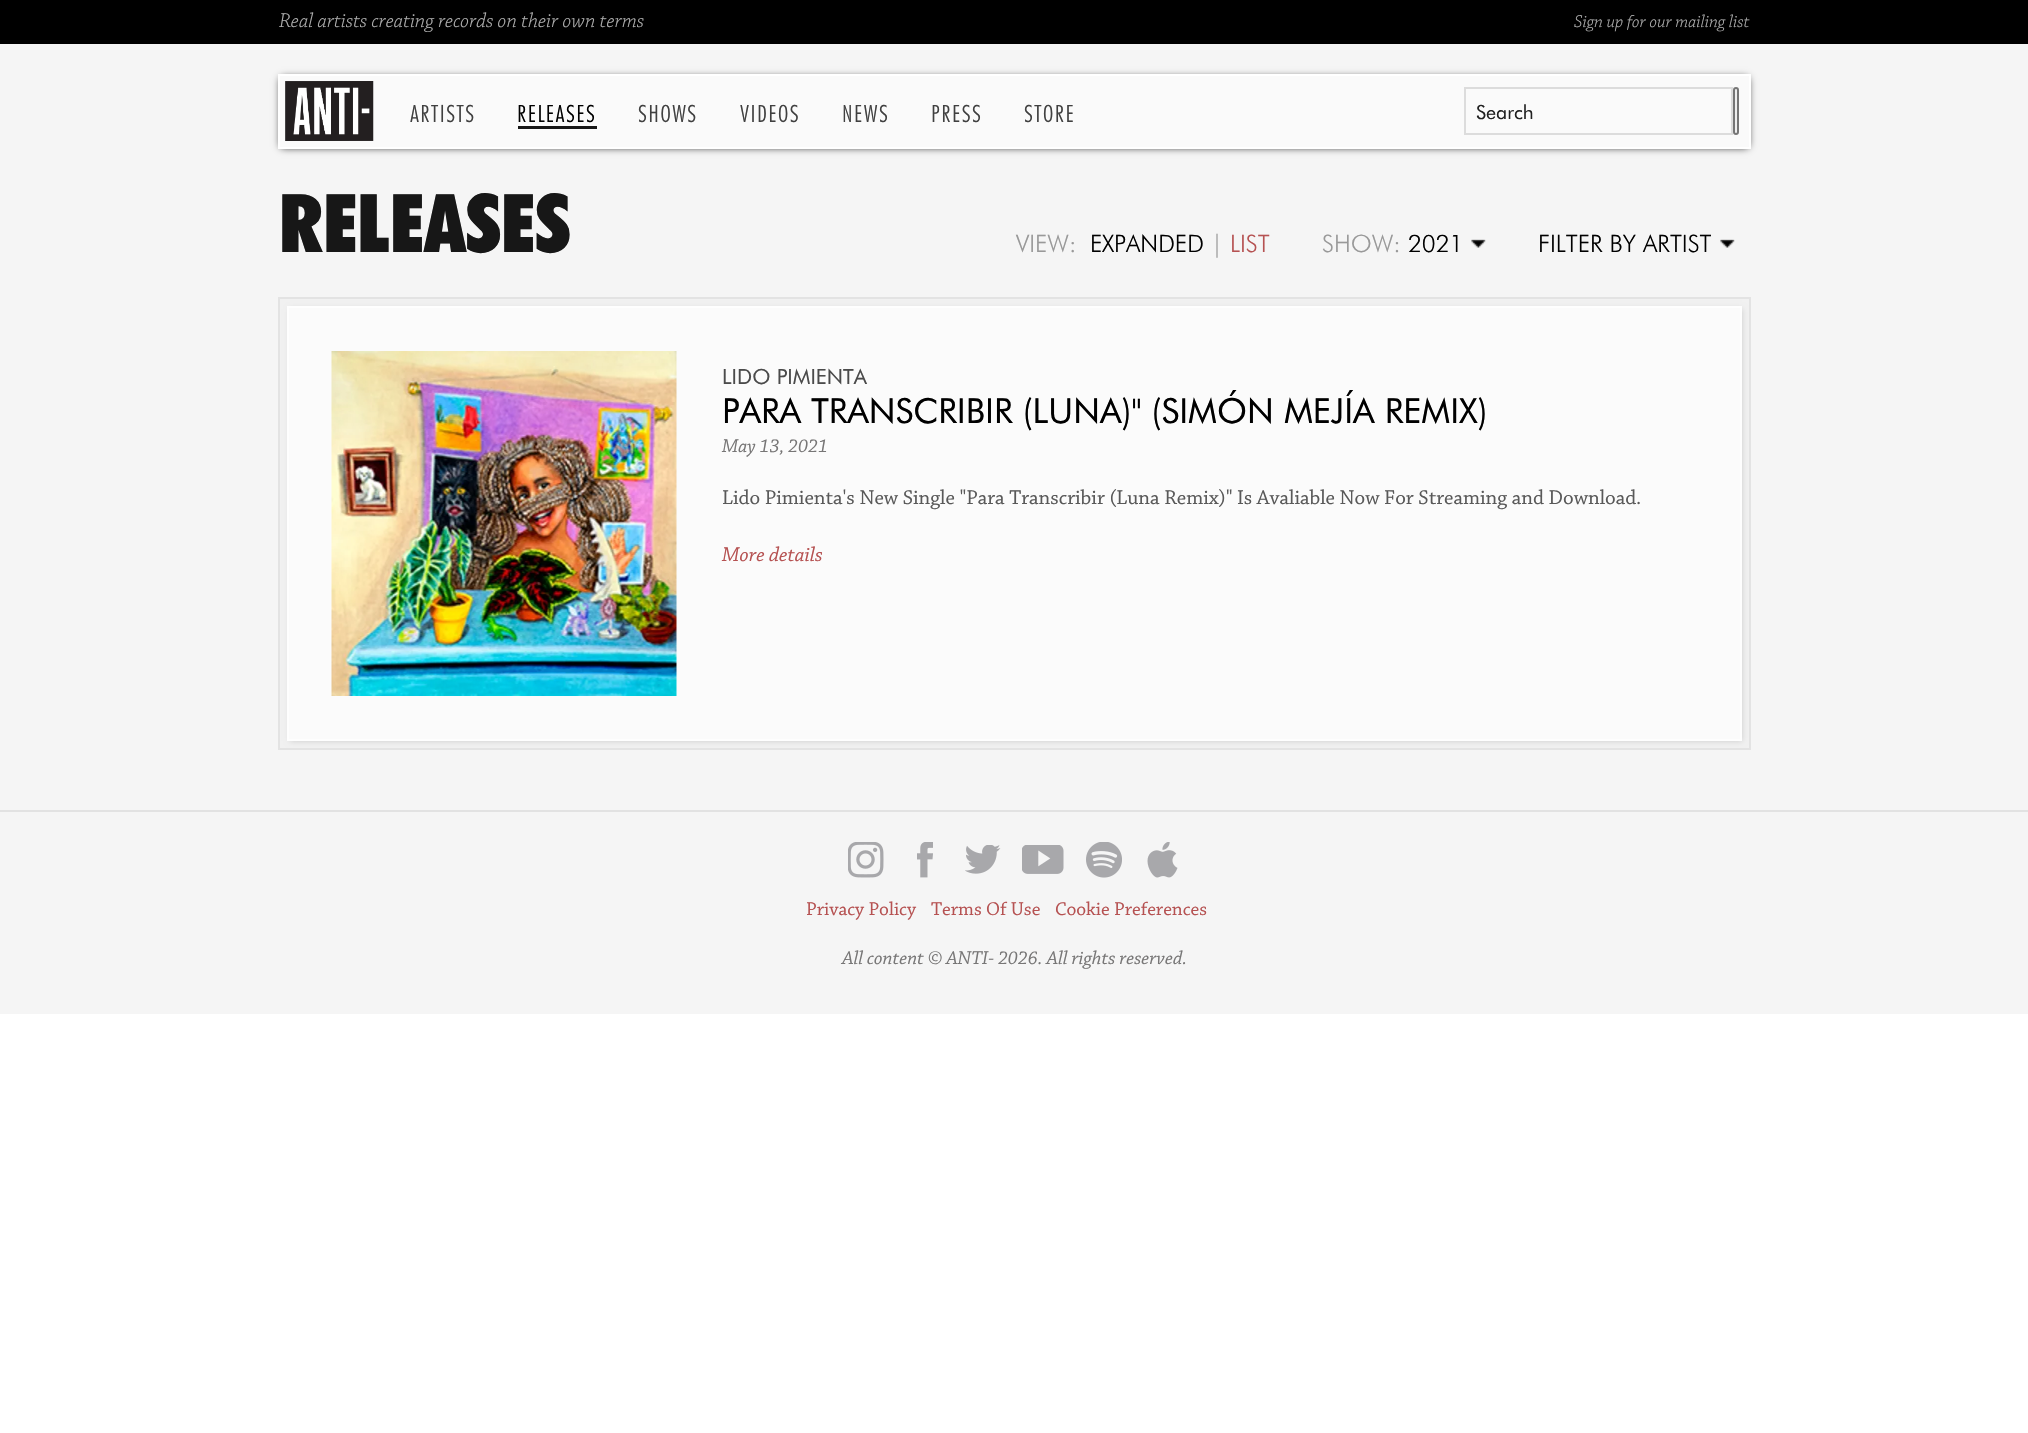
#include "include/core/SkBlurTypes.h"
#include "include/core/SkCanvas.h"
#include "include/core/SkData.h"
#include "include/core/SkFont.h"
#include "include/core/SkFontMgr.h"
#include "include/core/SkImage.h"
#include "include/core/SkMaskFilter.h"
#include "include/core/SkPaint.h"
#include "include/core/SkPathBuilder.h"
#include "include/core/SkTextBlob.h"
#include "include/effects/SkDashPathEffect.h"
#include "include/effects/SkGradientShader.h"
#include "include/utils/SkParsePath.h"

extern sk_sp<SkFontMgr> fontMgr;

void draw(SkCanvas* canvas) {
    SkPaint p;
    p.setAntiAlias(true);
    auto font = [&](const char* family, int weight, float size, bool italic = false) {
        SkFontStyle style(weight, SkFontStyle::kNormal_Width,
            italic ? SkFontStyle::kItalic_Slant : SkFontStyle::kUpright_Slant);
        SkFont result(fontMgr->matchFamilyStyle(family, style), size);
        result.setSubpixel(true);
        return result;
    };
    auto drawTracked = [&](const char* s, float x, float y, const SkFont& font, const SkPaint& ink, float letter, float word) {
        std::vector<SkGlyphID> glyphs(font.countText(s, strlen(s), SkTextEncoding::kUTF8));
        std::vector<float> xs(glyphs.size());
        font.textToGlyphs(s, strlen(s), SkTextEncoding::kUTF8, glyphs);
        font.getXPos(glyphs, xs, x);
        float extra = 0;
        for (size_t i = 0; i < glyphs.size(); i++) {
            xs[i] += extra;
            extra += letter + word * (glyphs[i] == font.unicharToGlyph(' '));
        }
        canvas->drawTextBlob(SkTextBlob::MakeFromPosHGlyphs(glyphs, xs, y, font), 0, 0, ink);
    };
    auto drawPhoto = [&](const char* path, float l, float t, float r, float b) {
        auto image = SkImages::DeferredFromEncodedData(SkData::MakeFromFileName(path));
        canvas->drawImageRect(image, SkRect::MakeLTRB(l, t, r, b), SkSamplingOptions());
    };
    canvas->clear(0xFFFFFFFF);
    p.setColor(0xFFF5F5F5);
    canvas->drawRect(SkRect::MakeLTRB(0, 44, 2028, 1014), p);
    p.setColor(0xFF000000);
    canvas->drawRect(SkRect::MakeLTRB(0, 0, 2028, 44), p);
    auto font1 = font("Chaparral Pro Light", 300, 21, true);
    p.setColor(0xFFADADAD);
    canvas->drawString("Real artists creating records on their own terms", 279, 27, font1, p);
    auto font2 = font("Chaparral Pro Light", 300, 18, true);
    canvas->drawString("Sign up for our mailing list", 1574, 27, font2, p);
    auto font3 = font("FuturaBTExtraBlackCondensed", 800, 81);
    p.setColor(0xFF171717);
    canvas->drawString("RELEASES", 279, 252, font3, p);
    auto font4 = font("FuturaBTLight", 300, 24);
    p.setColor(0xFF999999);
    canvas->drawString("VIEW:", 1016, 252, font4, p);
    p.setColor(0xFF000000);
    canvas->drawString("EXPANDED", 1090, 252, font4, p);
    p.setColor(0xFF999999);
    canvas->drawString("|", 1211, 252, font4, p);
    p.setColor(0xFFB65252);
    canvas->drawString("LIST", 1230, 252, font4, p);
    drawPhoto("media/1.png", 1471, 239, 1486, 248);
    p.setColor(0xFF999999);
    canvas->drawString("SHOW:", 1322, 252, font4, p);
    p.setColor(0xFF000000);
    canvas->drawString("2021", 1408, 252, font4, p);
    drawPhoto("media/2.png", 1720, 239, 1735, 248);
    canvas->drawString("FILTER BY ARTIST", 1538, 252, font4, p);
    p.setColor(0xFFF1F1F1);
    canvas->drawRect(SkRect::MakeLTRB(279, 298, 1750, 749), p);
    p.setStyle(SkPaint::kStroke_Style);
    p.setStrokeWidth(2);
    p.setColor(0xFFE3E3E3);
    canvas->drawRect(SkRect::MakeLTRB(279, 298, 1750, 749), p);
    p.setStyle(SkPaint::kFill_Style);
    p.setColor(0xFFCCCCCC);
    p.setMaskFilter(SkMaskFilter::MakeBlur(kNormal_SkBlurStyle, 3));
    canvas->drawRect(SkRect::MakeLTRB(290, 309, 1742, 741), p);
    p.setMaskFilter(nullptr);
    p.setColor(0xFFFBFBFB);
    canvas->drawRect(SkRect::MakeLTRB(288, 307, 1741, 740), p);
    p.setStyle(SkPaint::kStroke_Style);
    p.setColor(0xFFFEFEFE);
    canvas->drawRect(SkRect::MakeLTRB(288, 307, 1741, 740), p);
    drawPhoto("media/3.png", 331, 351, 677, 696);
    auto font5 = font("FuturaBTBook", 400, 21);
    p.setStyle(SkPaint::kFill_Style);
    p.setColor(0xFF4B4B4B);
    canvas->drawString("LIDO PIMIENTA", 722, 384, font5, p);
    auto font6 = font("FuturaBTBook", 400, 34.5f);
    p.setColor(0xFF000000);
    canvas->drawString("PARA TRANSCRIBIR (LUNA)\" (SIMÓN MEJÍA REMIX)", 722, 423, font6, p);
    auto font7 = font("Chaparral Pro", 400, 19.5f, true);
    p.setColor(0xFF777676);
    canvas->drawString("May 13, 2021", 722, 452, font7, p);
    auto font8 = font("Chaparral Pro", 400, 21);
    p.setColor(0xFF595959);
    canvas->drawString("Lido Pimienta's New Single \"Para Transcribir (Luna Remix)\" Is Avaliable Now For Streaming and Download.", 722, 504, font8, p);
    auto font9 = font("Chaparral Pro", 400, 21, true);
    p.setColor(0xFFB65252);
    canvas->drawString("More details", 722, 561, font9, p);
    p.setColor(0xFFE2E2E2);
    canvas->drawRect(SkRect::MakeLTRB(0, 810, 2028, 812), p);
    drawPhoto("media/4.png", 848, 842, 884, 878);
    drawPhoto("media/5.png", 917, 842, 933, 878);
    drawPhoto("media/6.png", 965, 845, 1001, 874);
    drawPhoto("media/7.png", 1022, 845, 1064, 874);
    drawPhoto("media/8.png", 1086, 842, 1122, 878);
    drawPhoto("media/9.png", 1147, 842, 1178, 878);
    auto font10 = font("Chaparral Pro", 400, 19.5f);
    p.setColor(0xFFB65252);
    {
        const struct { const char* s; float x, y; } items[] = {
            {"Privacy Policy", 806, 915},
            {"Terms Of Use", 931, 915},
            {"Cookie Preferences", 1055, 915},
        };
        for (auto [s, x, y] : items) {
            canvas->drawString(s, x, y, font10, p);
        }
    }
    p.setColor(0xFF777676);
    canvas->drawString("All content © ANTI- 2026. All rights reserved.", 842, 964, font7, p);
    p.setColor(0xFF000000);
    p.setMaskFilter(SkMaskFilter::MakeBlur(kNormal_SkBlurStyle, 4));
    canvas->drawRect(SkRect::MakeLTRB(281, 78, 1748, 147), p);
    p.setMaskFilter(nullptr);
    p.setColor(0xFFFAFAFA);
    canvas->drawRect(SkRect::MakeLTRB(279, 75, 1750, 148), p);
    p.setStyle(SkPaint::kStroke_Style);
    p.setColor(0xFFFFFFFF);
    canvas->drawRect(SkRect::MakeLTRB(279, 75, 1750, 148), p);
    drawPhoto("media/10.png", 285, 81, 374, 141);
    auto font11 = font("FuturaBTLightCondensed", 300, 24);
    p.setStyle(SkPaint::kFill_Style);
    p.setColor(0xFF404040);
    drawTracked("ARTISTS", 410, 122, font11, p, 1.5f, 0);
    p.setColor(0xFF000000);
    drawTracked("RELEASES", 517, 122, font11, p, 1.5f, 0);
    p.setColor(0xFF171717);
    canvas->drawRect(SkRect::MakeLTRB(518, 126, 597, 129), p);
    p.setColor(0xFF404040);
    {
        const struct { const char* s; float x, y; } items[] = {
            {"SHOWS", 638, 122},
            {"VIDEOS", 740, 122},
            {"NEWS", 842, 122},
            {"PRESS", 931, 122},
            {"STORE", 1024, 122},
        };
        for (auto [s, x, y] : items) {
            drawTracked(s, x, y, font11, p, 1.5f, 0);
        }
    }
    p.setStyle(SkPaint::kStroke_Style);
    p.setColor(0xFFDCDCDC);
    canvas->drawRect(SkRect::MakeLTRB(1465, 88, 1732, 134), p);
    auto font12 = font("FuturaBTBook", 400, 19.5f);
    p.setStyle(SkPaint::kFill_Style);
    p.setColor(0xFF202020);
    canvas->drawString("Search", 1476, 119, font12, p);
    p.setColor(0xFFEFEFEF);
    canvas->drawRoundRect(SkRect::MakeLTRB(1734, 88, 1738, 134), 2, 2, p);
    p.setStyle(SkPaint::kStroke_Style);
    p.setColor(0xFF767676);
    canvas->drawRoundRect(SkRect::MakeLTRB(1734, 88, 1738, 134), 2, 2, p);
}
